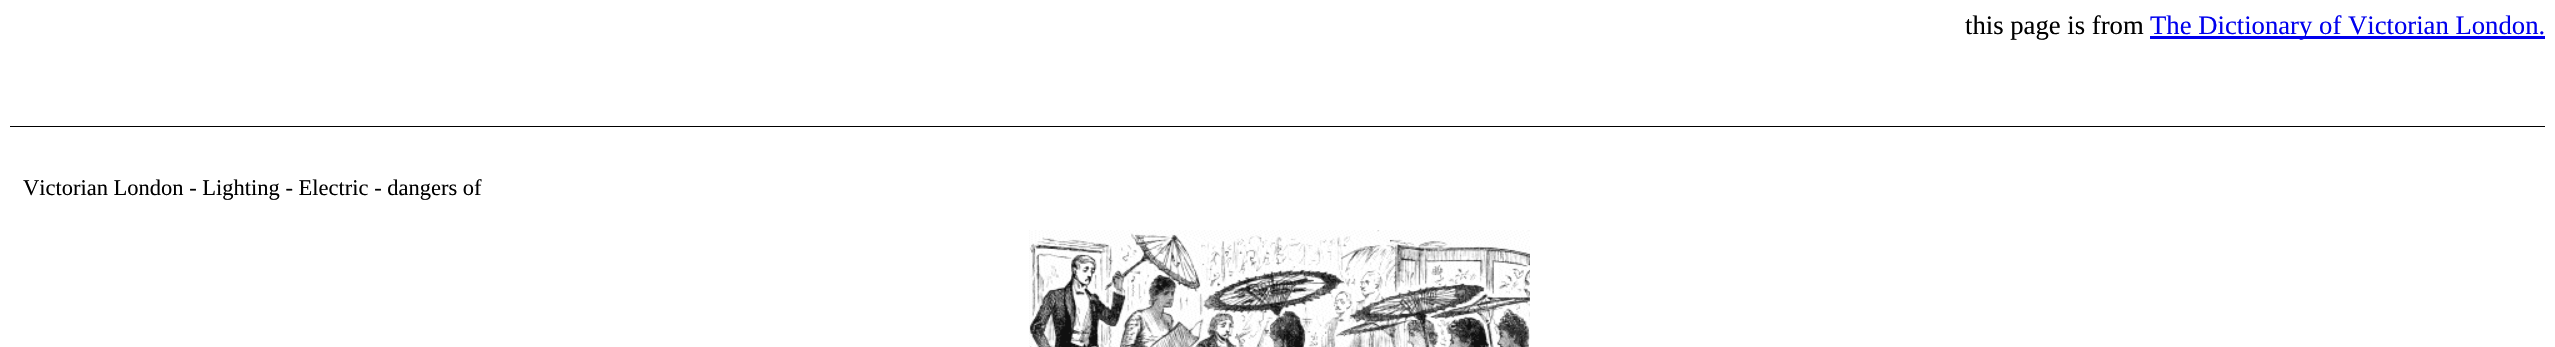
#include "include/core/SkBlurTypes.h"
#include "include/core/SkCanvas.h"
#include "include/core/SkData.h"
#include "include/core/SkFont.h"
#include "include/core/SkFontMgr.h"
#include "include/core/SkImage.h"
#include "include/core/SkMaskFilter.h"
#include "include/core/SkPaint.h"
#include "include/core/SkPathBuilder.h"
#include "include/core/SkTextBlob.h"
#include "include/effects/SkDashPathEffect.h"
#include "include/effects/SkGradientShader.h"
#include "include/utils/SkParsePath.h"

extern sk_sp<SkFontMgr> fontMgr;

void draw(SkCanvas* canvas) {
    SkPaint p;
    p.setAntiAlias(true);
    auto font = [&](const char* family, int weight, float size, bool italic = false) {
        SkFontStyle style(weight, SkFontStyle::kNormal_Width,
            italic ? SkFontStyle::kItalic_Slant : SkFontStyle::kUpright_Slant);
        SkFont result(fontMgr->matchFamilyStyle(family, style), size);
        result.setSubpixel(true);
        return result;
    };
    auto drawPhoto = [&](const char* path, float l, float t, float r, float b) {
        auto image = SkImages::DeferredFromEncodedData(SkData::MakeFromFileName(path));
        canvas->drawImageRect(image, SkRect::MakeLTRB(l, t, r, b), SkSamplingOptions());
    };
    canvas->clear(0xFFFFFFFF);
    auto font1 = font("Liberation Serif", 400, 26.7f);
    p.setColor(0xFF000000);
    canvas->drawString("this page is from", 1965, 34, font1, p);
    p.setColor(0xFF0000EE);
    canvas->drawRect(SkRect::MakeLTRB(2150, 36, 2545, 39), p);
    canvas->drawString("The Dictionary of Victorian London.", 2150, 34, font1, p);
    p.setColor(0xFF000000);
    canvas->drawRect(SkRect::MakeLTRB(10, 126, 2545, 127), p);
    auto font2 = font("Liberation Serif", 400, 22.5f);
    canvas->drawString("Victorian London - Lighting - Electric - dangers of", 23, 195, font2, p);
    drawPhoto("media/1.png", 1029, 230, 1530, 347);
}
